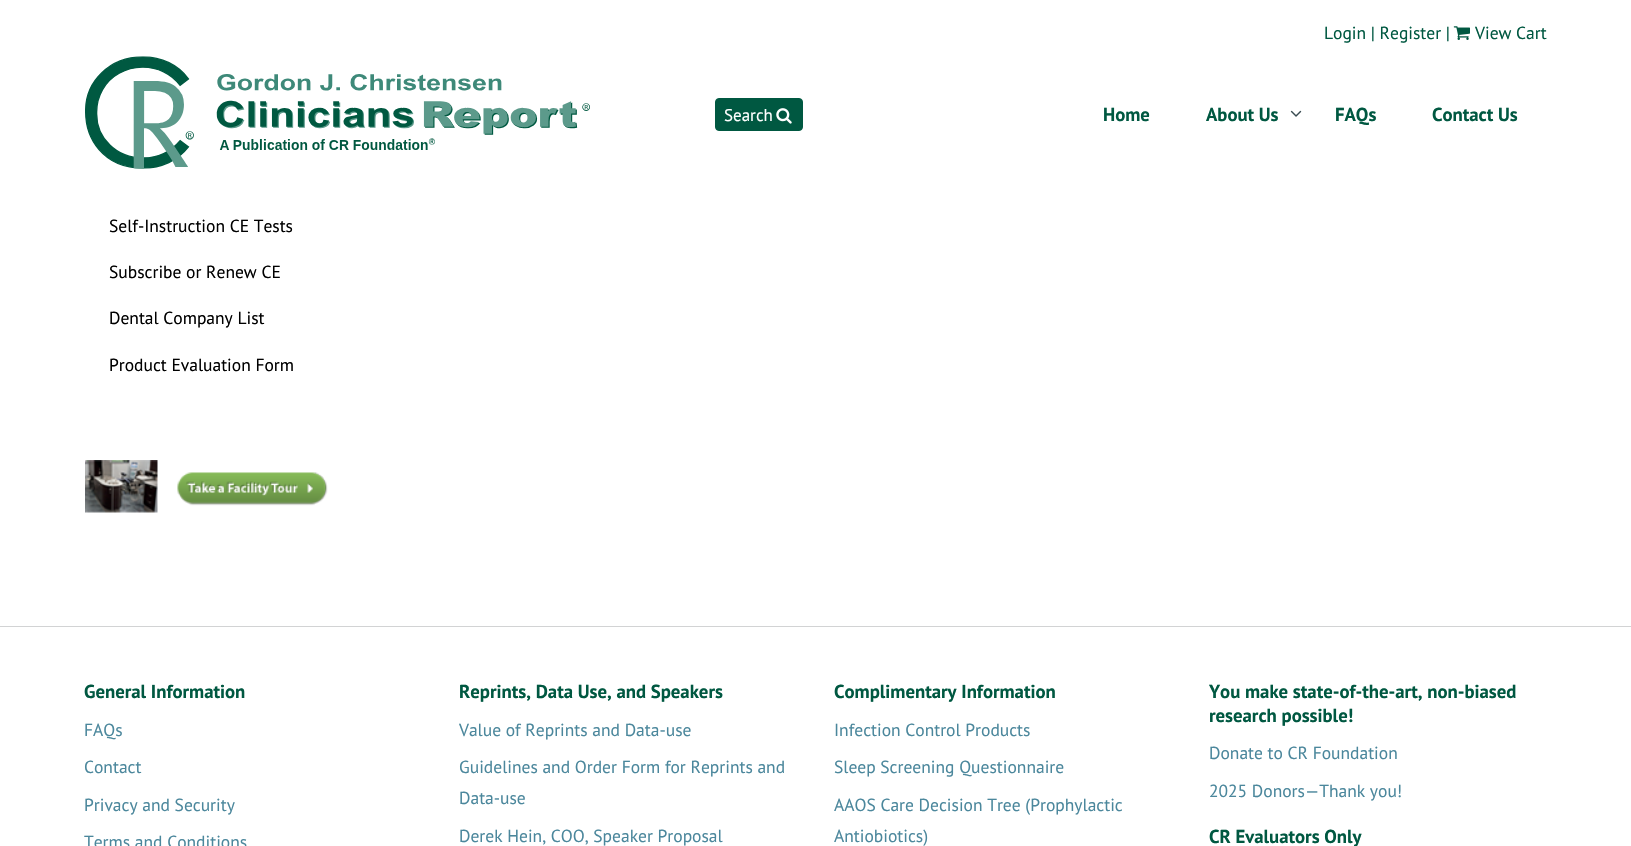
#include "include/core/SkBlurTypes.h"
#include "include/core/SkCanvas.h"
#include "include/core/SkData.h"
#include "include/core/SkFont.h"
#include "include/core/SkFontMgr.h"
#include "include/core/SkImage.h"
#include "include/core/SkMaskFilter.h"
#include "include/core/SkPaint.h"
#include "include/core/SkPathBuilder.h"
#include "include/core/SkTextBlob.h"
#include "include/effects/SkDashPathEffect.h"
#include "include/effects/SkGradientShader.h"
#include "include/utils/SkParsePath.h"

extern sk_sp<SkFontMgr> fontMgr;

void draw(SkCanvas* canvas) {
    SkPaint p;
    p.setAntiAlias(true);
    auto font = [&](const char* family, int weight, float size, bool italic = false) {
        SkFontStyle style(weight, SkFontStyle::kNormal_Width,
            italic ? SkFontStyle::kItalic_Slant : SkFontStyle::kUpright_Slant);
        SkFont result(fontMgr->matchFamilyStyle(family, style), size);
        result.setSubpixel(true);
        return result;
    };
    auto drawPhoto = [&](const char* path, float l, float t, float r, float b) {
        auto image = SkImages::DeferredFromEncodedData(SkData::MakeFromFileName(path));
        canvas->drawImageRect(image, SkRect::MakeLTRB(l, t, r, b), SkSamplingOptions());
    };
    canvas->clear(0xFFFFFFFF);
    auto font1 = font("PT Sans", 400, 17.5f);
    p.setColor(0xFF005841);
    canvas->drawString("Login | Register |", 1324, 39, font1, p);
    drawPhoto("media/1.png", 1453, 26, 1470, 40);
    canvas->drawString("View Cart", 1475, 39, font1, p);
    drawPhoto("media/2.png", 85, 56, 590, 169);
    canvas->drawRoundRect(SkRect::MakeLTRB(715.5f, 98.5f, 802.5f, 130.5f), 3.5f, 3.5f, p);
    p.setStyle(SkPaint::kStroke_Style);
    p.setStrokeWidth(1);
    canvas->drawRoundRect(SkRect::MakeLTRB(715.5f, 98.5f, 802.5f, 130.5f), 3.5f, 3.5f, p);
    auto font2 = font("PT Sans", 400, 17);
    p.setStyle(SkPaint::kFill_Style);
    p.setColor(0xFFFFFFFF);
    canvas->drawString("Search", 724, 121, font2, p);
    drawPhoto("media/3.png", 776, 108, 792, 124);
    auto font3 = font("PT Sans", 700, 18.75f);
    p.setColor(0xFF005841);
    canvas->drawString("Home", 1103, 121, font3, p);
    canvas->drawString("About Us", 1206, 121, font3, p);
    drawPhoto("media/4.png", 1290, 110, 1302, 117);
    canvas->drawString("FAQs", 1335, 121, font3, p);
    canvas->drawString("Contact Us", 1432, 121, font3, p);
    p.setColor(0xFF000000);
    {
        const struct { const char* s; float x, y; } items[] = {
            {"Self-Instruction CE Tests", 109, 232},
            {"Subscribe or Renew CE", 109, 278},
            {"Dental Company List", 109, 324},
            {"Product Evaluation Form", 109, 371},
        };
        for (auto [s, x, y] : items) {
            canvas->drawString(s, x, y, font1, p);
        }
    }
    drawPhoto("media/5.png", 85, 460, 328, 513);
    p.setColor(0xFFD2D3D4);
    canvas->drawRect(SkRect::MakeLTRB(0, 626, 1631, 627), p);
    p.setColor(0xFF005841);
    canvas->drawString("General Information", 84, 698, font3, p);
    p.setColor(0xFF4B879C);
    {
        const struct { const char* s; float x, y; } items[] = {
            {"FAQs", 84, 736},
            {"Contact", 84, 773},
            {"Privacy and Security", 84, 811},
            {"Terms and Conditions", 84, 848},
        };
        for (auto [s, x, y] : items) {
            canvas->drawString(s, x, y, font1, p);
        }
    }
    p.setColor(0xFF005841);
    canvas->drawString("Reprints, Data Use, and Speakers", 459, 698, font3, p);
    p.setColor(0xFF4B879C);
    {
        const struct { const char* s; float x, y; } items[] = {
            {"Value of Reprints and Data-use", 459, 736},
            {"Guidelines and Order Form for Reprints and", 459, 773},
            {"Data-use", 459, 804},
            {"Derek Hein, COO, Speaker Proposal", 459, 842},
        };
        for (auto [s, x, y] : items) {
            canvas->drawString(s, x, y, font1, p);
        }
    }
    p.setColor(0xFF005841);
    canvas->drawString("Complimentary Information", 834, 698, font3, p);
    p.setColor(0xFF4B879C);
    {
        const struct { const char* s; float x, y; } items[] = {
            {"Infection Control Products", 834, 736},
            {"Sleep Screening Questionnaire", 834, 773},
            {"AAOS Care Decision Tree (Prophylactic", 834, 811},
            {"Antiobiotics)", 834, 842},
        };
        for (auto [s, x, y] : items) {
            canvas->drawString(s, x, y, font1, p);
        }
    }
    p.setColor(0xFF005841);
    canvas->drawString("You make state-of-the-art, non-biased", 1209, 698, font3, p);
    canvas->drawString("research possible!", 1209, 722, font3, p);
    p.setColor(0xFF4B879C);
    canvas->drawString("Donate to CR Foundation", 1209, 759, font1, p);
    canvas->drawString("2025 Donors—Thank you!", 1209, 797, font1, p);
    p.setColor(0xFF005841);
    canvas->drawString("CR Evaluators Only", 1209, 843, font3, p);
}
